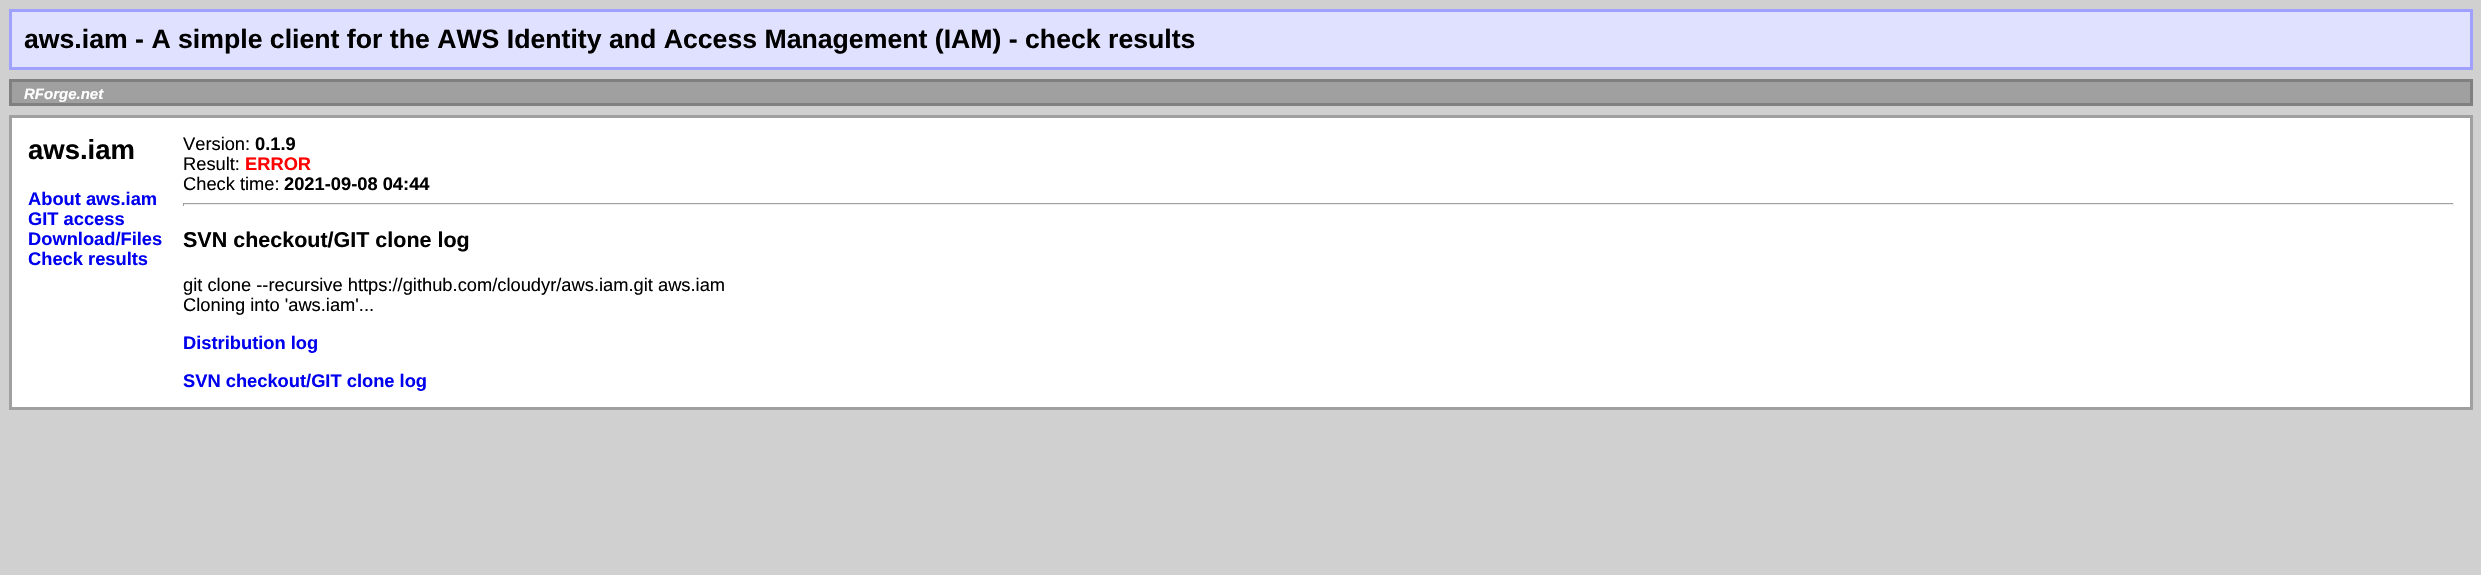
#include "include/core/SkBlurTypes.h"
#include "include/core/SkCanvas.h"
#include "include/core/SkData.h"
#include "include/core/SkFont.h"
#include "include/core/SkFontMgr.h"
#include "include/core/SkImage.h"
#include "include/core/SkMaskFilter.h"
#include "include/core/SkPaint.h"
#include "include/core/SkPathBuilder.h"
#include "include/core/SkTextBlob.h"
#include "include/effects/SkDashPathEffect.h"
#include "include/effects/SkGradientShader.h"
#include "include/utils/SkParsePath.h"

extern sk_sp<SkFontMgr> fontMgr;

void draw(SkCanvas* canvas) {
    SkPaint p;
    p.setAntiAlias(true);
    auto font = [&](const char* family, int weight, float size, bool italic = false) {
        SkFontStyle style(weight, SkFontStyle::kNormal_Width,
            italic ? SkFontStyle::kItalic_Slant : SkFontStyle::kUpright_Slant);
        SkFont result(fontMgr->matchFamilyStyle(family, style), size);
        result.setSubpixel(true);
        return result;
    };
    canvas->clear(0xFFD0D0D0);
    p.setColor(0xFFE0E0FF);
    canvas->drawRect(SkRect::MakeLTRB(10.5f, 10.5f, 2471.5f, 68.5f), p);
    p.setStyle(SkPaint::kStroke_Style);
    p.setStrokeWidth(3);
    p.setColor(0xFFA0A0FF);
    canvas->drawRect(SkRect::MakeLTRB(10.5f, 10.5f, 2471.5f, 68.5f), p);
    auto font1 = font("Liberation Sans", 700, 26.65f);
    p.setStyle(SkPaint::kFill_Style);
    p.setColor(0xFF000000);
    canvas->drawString("aws.iam - A simple client for the AWS Identity and Access Management (IAM) - check results", 24, 48, font1, p);
    p.setColor(0xFFA0A0A0);
    canvas->drawRect(SkRect::MakeLTRB(10.5f, 80.5f, 2471.5f, 104.5f), p);
    p.setStyle(SkPaint::kStroke_Style);
    p.setColor(0xFF808080);
    canvas->drawRect(SkRect::MakeLTRB(10.5f, 80.5f, 2471.5f, 104.5f), p);
    auto font2 = font("Liberation Sans", 700, 15, true);
    p.setStyle(SkPaint::kFill_Style);
    p.setColor(0xFFFFFFFF);
    canvas->drawString("RForge.net", 24, 99, font2, p);
    canvas->drawRect(SkRect::MakeLTRB(10.5f, 116.5f, 2471.5f, 408.5f), p);
    p.setStyle(SkPaint::kStroke_Style);
    p.setColor(0xFFA0A0A0);
    canvas->drawRect(SkRect::MakeLTRB(10.5f, 116.5f, 2471.5f, 408.5f), p);
    auto font3 = font("Liberation Sans", 700, 27.5f);
    p.setStyle(SkPaint::kFill_Style);
    p.setColor(0xFF000000);
    canvas->drawString("aws.iam", 28, 159, font3, p);
    auto font4 = font("Liberation Sans", 700, 18.3f);
    p.setColor(0xFF0000EE);
    {
        const struct { const char* s; float x, y; } items[] = {
            {"About aws.iam", 28, 205},
            {"GIT access", 28, 225},
            {"Download/Files", 28, 245},
            {"Check results", 28, 265},
        };
        for (auto [s, x, y] : items) {
            canvas->drawString(s, x, y, font4, p);
        }
    }
    auto font5 = font("Liberation Sans", 400, 18.3f);
    p.setColor(0xFF000000);
    canvas->drawString("Version:", 183, 150, font5, p);
    canvas->drawString("0.1.9", 255, 150, font4, p);
    canvas->drawString("Result:", 183, 170, font5, p);
    p.setColor(0xFFFF0000);
    canvas->drawString("ERROR", 245, 170, font4, p);
    p.setColor(0xFF000000);
    canvas->drawString("Check time:", 183, 190, font5, p);
    canvas->drawString("2021-09-08 04:44", 284, 190, font4, p);
    {
        const struct { float l, t, r, b; SkColor color; } items[] = {
            {183, 203, 2454, 204, 0xFF9F9F9F},
            {2453, 203, 2454, 206, 0xFFEEEEEE},
            {183, 204, 2454, 205, 0xFFEEEEEE},
            {183, 203, 184, 206, 0xFF9F9F9F},
        };
        for (auto [l, t, r, b, color] : items) {
            p.setColor(color);
            canvas->drawRect(SkRect::MakeLTRB(l, t, r, b), p);
        }
    }
    auto font6 = font("Liberation Sans", 700, 21.5f);
    p.setColor(0xFF000000);
    canvas->drawString("SVN checkout/GIT clone log", 183, 247, font6, p);
    canvas->drawString("git clone --recursive https://github.com/cloudyr/aws.iam.git aws.iam", 183, 291, font5, p);
    canvas->drawString("Cloning into 'aws.iam'...", 183, 311, font5, p);
    p.setColor(0xFF0000EE);
    canvas->drawString("Distribution log", 183, 349, font4, p);
    canvas->drawString("SVN checkout/GIT clone log", 183, 387, font4, p);
}
